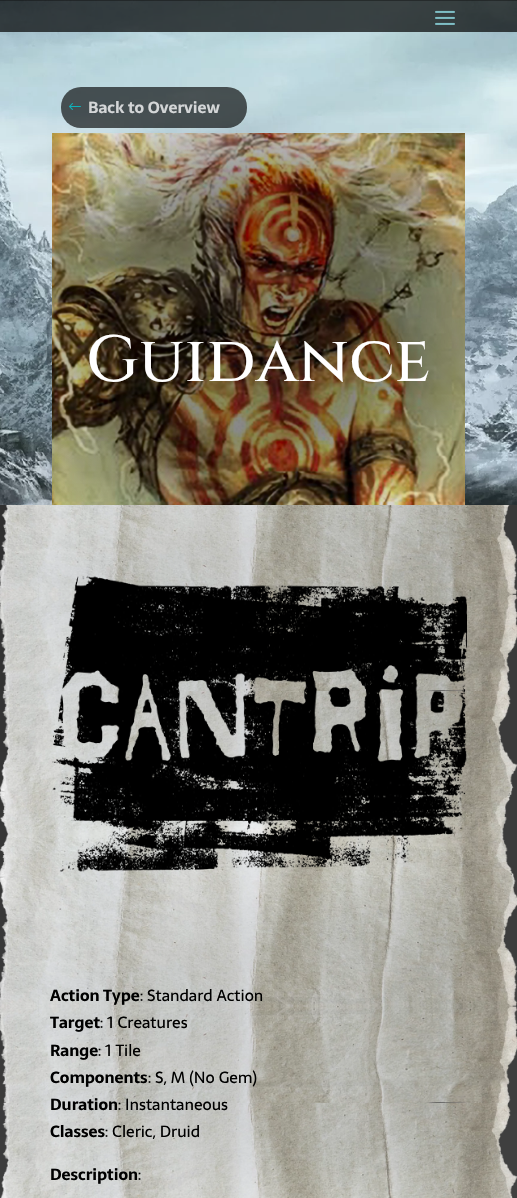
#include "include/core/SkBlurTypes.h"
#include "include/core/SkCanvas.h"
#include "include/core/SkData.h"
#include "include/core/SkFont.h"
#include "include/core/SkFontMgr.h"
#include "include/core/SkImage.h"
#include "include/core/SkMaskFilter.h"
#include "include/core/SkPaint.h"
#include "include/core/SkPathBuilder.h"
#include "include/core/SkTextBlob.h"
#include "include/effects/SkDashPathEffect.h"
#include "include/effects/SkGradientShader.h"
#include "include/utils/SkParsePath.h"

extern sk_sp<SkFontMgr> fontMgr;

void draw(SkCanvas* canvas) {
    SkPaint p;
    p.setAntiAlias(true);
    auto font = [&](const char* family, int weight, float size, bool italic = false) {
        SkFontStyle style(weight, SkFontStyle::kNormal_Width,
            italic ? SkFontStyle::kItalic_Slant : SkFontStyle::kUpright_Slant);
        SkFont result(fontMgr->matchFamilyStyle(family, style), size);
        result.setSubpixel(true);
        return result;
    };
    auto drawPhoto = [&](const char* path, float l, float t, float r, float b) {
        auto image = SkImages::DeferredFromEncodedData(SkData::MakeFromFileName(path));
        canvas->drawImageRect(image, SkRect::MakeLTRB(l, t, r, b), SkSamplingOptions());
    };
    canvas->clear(0xFFFFFFFF);
    p.setColor(0xFF222222);
    canvas->drawRect(SkRect::MakeLTRB(0, 0, 517, 1), p);
    drawPhoto("media/1.png", 0, 0, 517, 505);
    p.setColor(0xB3000000);
    canvas->drawRect(SkRect::MakeLTRB(0, 0, 517, 32), p);
    drawPhoto("media/2.png", 435, 10, 455, 25);
    p.setColor(0xA3000000);
    canvas->drawRoundRect(SkRect::MakeLTRB(61, 87, 247, 128), 20, 20, p);
    drawPhoto("media/3.png", 69, 103, 81, 110);
    auto font1 = font("Sarala", 700, 16);
    p.setColor(0xFFD4D6D7);
    canvas->drawString("Back to Overview", 88, 113, font1, p);
    drawPhoto("media/4.png", 52, 133, 465, 505);
    auto font2 = font("Cinzel", 500, 65);
    p.setColor(0xFFFFFFFF);
    canvas->drawString("Guidance", 86, 381, font2, p);
    {
        const SkColor colors[] = {0xFF303030, 0xFF424242};
        const float stops[] = {0, 1};
        p.setShader(SkGradientShader::MakeRadial({0, 505}, 990, colors, stops, 2, SkTileMode::kClamp));
        p.setAlpha(255);
    }
    canvas->drawRect(SkRect::MakeLTRB(0, 505, 517, 1198), p);
    drawPhoto("media/5.png", 0, 505, 517, 1198);
    drawPhoto("media/6.png", 50, 576, 467, 872);
    p.setShader(nullptr);
    p.setColor(0xFF000000);
    canvas->drawString("Action Type", 50, 1001, font1, p);
    auto font3 = font("Sarala", 400, 16);
    canvas->drawString(": Standard Action", 140, 1001, font3, p);
    canvas->drawString("Target", 50, 1028, font1, p);
    canvas->drawString(": 1 Creatures", 100, 1028, font3, p);
    canvas->drawString("Range", 50, 1056, font1, p);
    canvas->drawString(": 1 Tile", 98, 1056, font3, p);
    canvas->drawString("Components", 50, 1083, font1, p);
    canvas->drawString(": S, M (No Gem)", 148, 1083, font3, p);
    canvas->drawString("Duration", 50, 1110, font1, p);
    canvas->drawString(": Instantaneous", 118, 1110, font3, p);
    canvas->drawString("Classes", 50, 1137, font1, p);
    canvas->drawString(": Cleric, Druid", 105, 1137, font3, p);
    canvas->drawString("Description", 50, 1180, font1, p);
    canvas->drawString(":", 138, 1180, font3, p);
}
